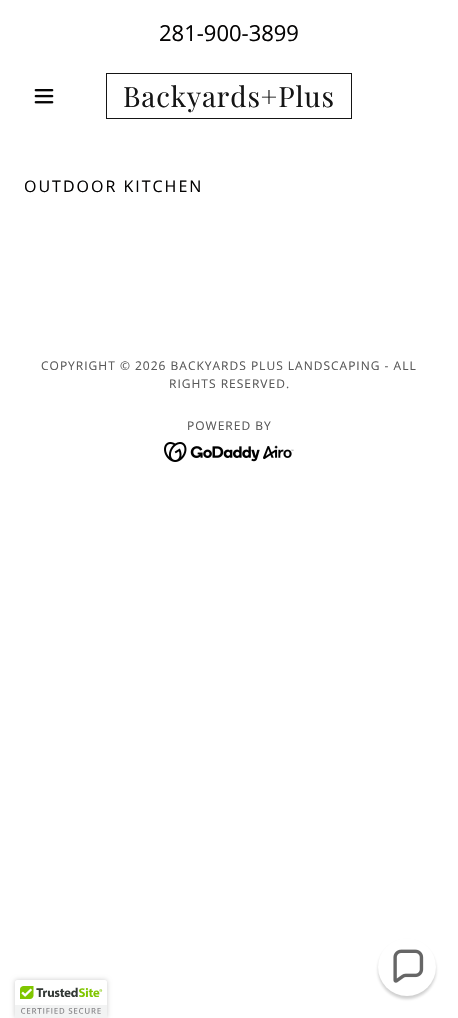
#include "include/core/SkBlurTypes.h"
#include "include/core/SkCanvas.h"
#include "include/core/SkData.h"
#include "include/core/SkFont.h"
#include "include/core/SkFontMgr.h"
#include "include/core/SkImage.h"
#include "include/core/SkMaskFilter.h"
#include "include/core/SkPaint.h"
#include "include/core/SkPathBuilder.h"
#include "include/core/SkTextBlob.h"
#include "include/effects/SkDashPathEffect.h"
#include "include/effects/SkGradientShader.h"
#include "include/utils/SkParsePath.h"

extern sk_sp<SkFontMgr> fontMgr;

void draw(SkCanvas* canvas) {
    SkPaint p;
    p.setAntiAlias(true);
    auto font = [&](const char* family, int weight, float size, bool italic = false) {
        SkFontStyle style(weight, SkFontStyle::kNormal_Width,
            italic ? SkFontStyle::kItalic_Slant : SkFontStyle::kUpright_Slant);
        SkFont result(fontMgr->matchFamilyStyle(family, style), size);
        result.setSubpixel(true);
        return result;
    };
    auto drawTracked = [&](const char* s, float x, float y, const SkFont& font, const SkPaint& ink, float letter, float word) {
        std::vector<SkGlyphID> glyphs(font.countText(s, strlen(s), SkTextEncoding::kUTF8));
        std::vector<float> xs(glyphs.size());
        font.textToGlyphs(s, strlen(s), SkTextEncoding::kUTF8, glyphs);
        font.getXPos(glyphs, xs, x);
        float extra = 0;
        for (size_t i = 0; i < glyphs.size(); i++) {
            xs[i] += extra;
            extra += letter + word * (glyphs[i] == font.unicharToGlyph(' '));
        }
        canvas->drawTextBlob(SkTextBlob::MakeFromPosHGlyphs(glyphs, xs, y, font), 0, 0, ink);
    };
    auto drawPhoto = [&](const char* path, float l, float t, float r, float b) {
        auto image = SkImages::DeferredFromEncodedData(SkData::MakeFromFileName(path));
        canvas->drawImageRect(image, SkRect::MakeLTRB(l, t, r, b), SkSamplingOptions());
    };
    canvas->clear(0xFFFFFFFF);
    auto font1 = font("Open Sans", 400, 22);
    p.setColor(0xFF050404);
    canvas->drawString("281-900-3899", 159, 41, font1, p);
    drawPhoto("media/1.png", 34, 89, 54, 104);
    p.setStyle(SkPaint::kStroke_Style);
    p.setStrokeWidth(1);
    p.setColor(0xFF151515);
    canvas->drawRect(SkRect::MakeLTRB(106.5f, 73.5f, 351.5f, 118.5f), p);
    auto font2 = font("Playfair Display", 400, 28);
    p.setStyle(SkPaint::kFill_Style);
    drawTracked("Backyards+Plus", 123, 107, font2, p, 0.9f, 0);
    auto font3 = font("Open Sans", 400, 16);
    p.setColor(0xFF050404);
    drawTracked("OUTDOOR KITCHEN", 24, 192, font3, p, 2, 0);
    auto font4 = font("Open Sans", 400, 12);
    p.setColor(0xFF595959);
    {
        const struct { const char* s; float x, y; } items[] = {
            {"COPYRIGHT © 2026 BACKYARDS PLUS LANDSCAPING - ALL", 41, 370},
            {"RIGHTS RESERVED.", 169, 388},
            {"POWERED BY", 187, 430},
        };
        for (auto [s, x, y] : items) {
            drawTracked(s, x, y, font4, p, 1, 0);
        }
    }
    drawPhoto("media/2.png", 164, 442, 294, 462);
    p.setColor(0x33000000);
    p.setMaskFilter(SkMaskFilter::MakeBlur(kNormal_SkBlurStyle, 2.5f));
    canvas->drawRoundRect(SkRect::MakeLTRB(15, 980, 107, 1018), 2, 2, p);
    p.setMaskFilter(nullptr);
    p.setColor(0xFFFFFFFF);
    canvas->drawPath(SkPathBuilder().moveTo(17, 980).lineTo(105, 980).cubicTo(106, 980, 107, 981, 107, 982).lineTo(107, 1018).lineTo(15, 1018).lineTo(15, 982).cubicTo(15, 981, 16, 980, 17, 980).close().detach(), p);
    drawPhoto("media/3.png", 15, 986, 107, 1018);
    p.setColor(0x330D0D0D);
    p.setMaskFilter(SkMaskFilter::MakeBlur(kNormal_SkBlurStyle, 1.5f));
    canvas->drawRoundRect(SkRect::MakeLTRB(378, 941, 436, 999), 29, 29, p);
    p.setMaskFilter(nullptr);
    p.setColor(0xFFFFFFFF);
    canvas->drawCircle(407, 967, 29, p);
    drawPhoto("media/4.png", 393, 949, 424, 983);
}
